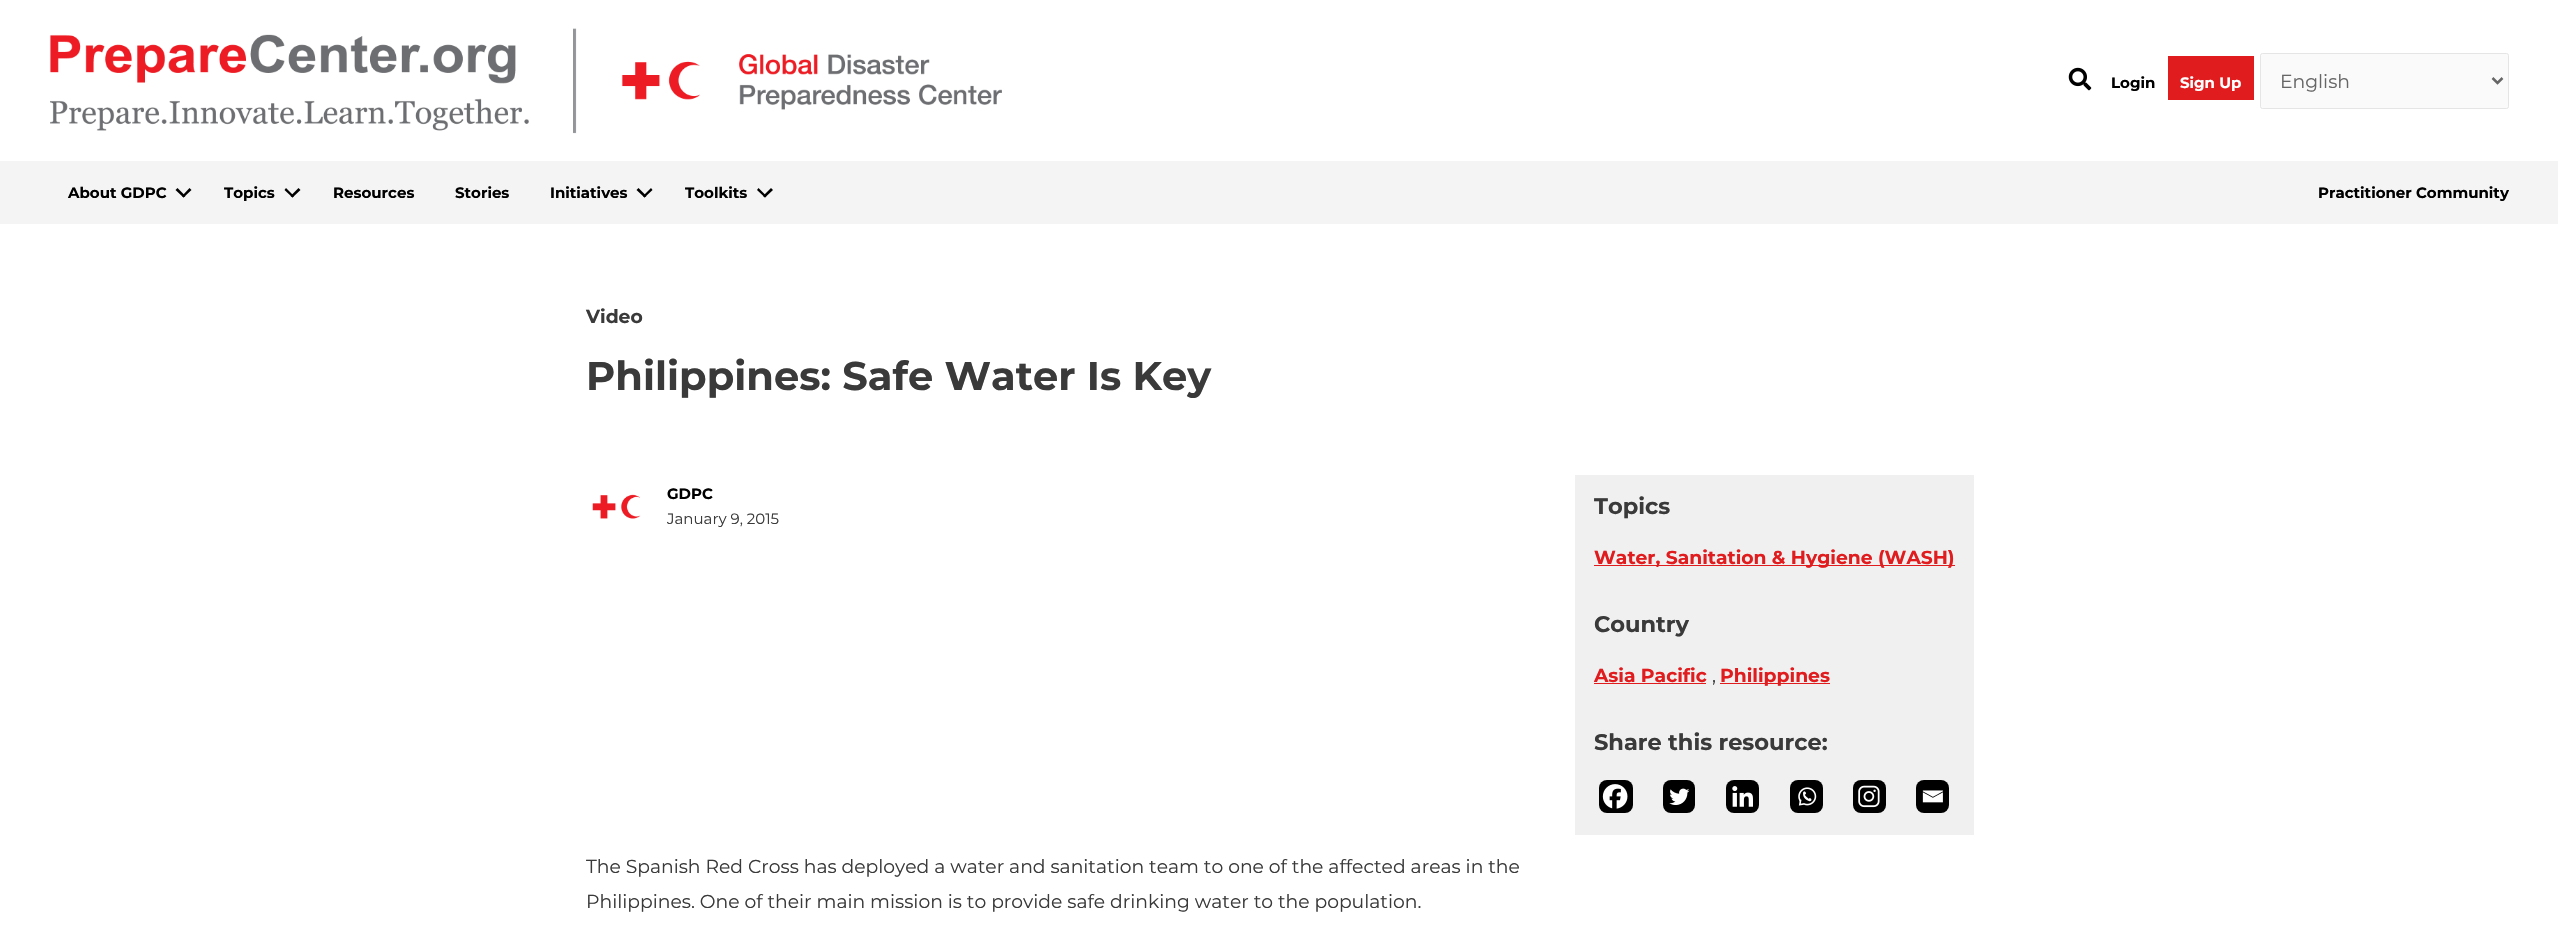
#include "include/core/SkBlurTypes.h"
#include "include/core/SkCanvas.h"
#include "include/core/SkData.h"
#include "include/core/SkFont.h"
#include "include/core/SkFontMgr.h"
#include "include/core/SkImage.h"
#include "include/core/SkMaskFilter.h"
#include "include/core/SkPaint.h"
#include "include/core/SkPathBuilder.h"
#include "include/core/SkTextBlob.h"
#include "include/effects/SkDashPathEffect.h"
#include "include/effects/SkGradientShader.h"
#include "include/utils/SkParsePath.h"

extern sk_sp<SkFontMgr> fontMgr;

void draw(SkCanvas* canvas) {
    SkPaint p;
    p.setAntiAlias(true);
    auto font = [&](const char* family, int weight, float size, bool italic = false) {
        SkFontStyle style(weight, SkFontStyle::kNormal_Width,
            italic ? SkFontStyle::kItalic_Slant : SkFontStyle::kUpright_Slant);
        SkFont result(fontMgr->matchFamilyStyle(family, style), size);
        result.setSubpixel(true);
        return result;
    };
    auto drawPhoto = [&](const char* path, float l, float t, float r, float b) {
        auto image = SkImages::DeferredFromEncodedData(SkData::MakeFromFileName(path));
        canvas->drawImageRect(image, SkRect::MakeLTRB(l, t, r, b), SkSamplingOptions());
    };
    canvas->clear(0xFFFFFFFF);
    drawPhoto("media/1.png", 50, 28, 1002, 134);
    drawPhoto("media/2.png", 2068, 67, 2092, 91);
    auto font1 = font("Montserrat", 700, 15);
    p.setColor(0xFF000000);
    canvas->drawString("Login", 2111, 88, font1, p);
    p.setColor(0xFFE01C1E);
    canvas->drawRect(SkRect::MakeLTRB(2168, 56, 2254, 100), p);
    p.setColor(0xFFFFFFFF);
    canvas->drawString("Sign Up", 2180, 88, font1, p);
    p.setColor(0xFFFAFAFA);
    canvas->drawRoundRect(SkRect::MakeLTRB(2260.5f, 53.5f, 2508.5f, 108.5f), 2, 2, p);
    p.setStyle(SkPaint::kStroke_Style);
    p.setStrokeWidth(1);
    p.setColor(0xFFE5E5E5);
    canvas->drawRoundRect(SkRect::MakeLTRB(2260.5f, 53.5f, 2508.5f, 108.5f), 2, 2, p);
    p.setStrokeWidth(2.5f);
    p.setColor(0xFF666666);
    canvas->drawPath(SkPathBuilder().moveTo(2492.5f, 78).lineTo(2497.5f, 83).lineTo(2502.5f, 78).detach(), p);
    auto font2 = font("Montserrat", 400, 18.75f);
    p.setStyle(SkPaint::kFill_Style);
    canvas->drawString("English", 2280, 88, font2, p);
    p.setColor(0xFFF4F4F4);
    canvas->drawRect(SkRect::MakeLTRB(0, 161, 2558, 224), p);
    p.setColor(0xFF000000);
    canvas->drawString("About GDPC", 68, 198, font1, p);
    canvas->drawPath(SkPathBuilder().moveTo(189.5f, 188).lineTo(191.5f, 190).lineTo(183.5f, 197.5f).lineTo(182, 196).close().detach(), p);
    canvas->drawPath(SkPathBuilder().moveTo(177.5f, 188).lineTo(185.5f, 196).lineTo(183.5f, 197.5f).lineTo(175.5f, 190).close().detach(), p);
    canvas->drawString("Topics", 224, 198, font1, p);
    canvas->drawPath(SkPathBuilder().moveTo(298.5f, 188).lineTo(300.5f, 190).lineTo(292.5f, 197.5f).lineTo(290.5f, 196).close().detach(), p);
    canvas->drawPath(SkPathBuilder().moveTo(286, 188).lineTo(294, 196).lineTo(292.5f, 197.5f).lineTo(284.5f, 190).close().detach(), p);
    {
        const struct { const char* s; float x, y; } items[] = {
            {"Resources", 333, 198},
            {"Stories", 455, 198},
            {"Initiatives", 550, 198},
        };
        for (auto [s, x, y] : items) {
            canvas->drawString(s, x, y, font1, p);
        }
    }
    canvas->drawPath(SkPathBuilder().moveTo(651, 188).lineTo(652.5f, 190).lineTo(644.5f, 197.5f).lineTo(643, 196).close().detach(), p);
    canvas->drawPath(SkPathBuilder().moveTo(638.5f, 188).lineTo(646.5f, 196).lineTo(644.5f, 197.5f).lineTo(636.5f, 190).close().detach(), p);
    canvas->drawString("Toolkits", 685, 198, font1, p);
    canvas->drawPath(SkPathBuilder().moveTo(771, 188).lineTo(773, 190).lineTo(765, 197.5f).lineTo(763, 196).close().detach(), p);
    canvas->drawPath(SkPathBuilder().moveTo(758.5f, 188).lineTo(766.5f, 196).lineTo(765, 197.5f).lineTo(757, 190).close().detach(), p);
    canvas->drawString("Practitioner Community", 2318, 198, font1, p);
    auto font3 = font("Montserrat", 700, 18.75f);
    p.setColor(0xFF3A3A3A);
    canvas->drawString("Video", 586, 323, font3, p);
    auto font4 = font("Montserrat", 700, 40);
    canvas->drawString("Philippines: Safe Water Is Key", 586, 390, font4, p);
    drawPhoto("media/3.png", 592, 494, 641, 519);
    p.setColor(0xFF000000);
    canvas->drawString("GDPC", 667, 499, font1, p);
    auto font5 = font("Montserrat", 400, 15);
    p.setColor(0xFF3A3A3A);
    canvas->drawString("January 9, 2015", 667, 524, font5, p);
    canvas->drawString("The Spanish Red Cross has deployed a water and sanitation team to one of the affected areas in the", 586, 873, font2, p);
    canvas->drawString("Philippines. One of their main mission is to provide safe drinking water to the population.", 586, 908, font2, p);
    p.setColor(0xFFF0F0F0);
    canvas->drawRect(SkRect::MakeLTRB(1575, 475, 1974, 835), p);
    auto font6 = font("Montserrat", 700, 22.5f);
    p.setColor(0xFF3A3A3A);
    canvas->drawString("Topics", 1594, 514, font6, p);
    p.setColor(0xFFE01C1E);
    canvas->drawRect(SkRect::MakeLTRB(1594, 565, 1955, 566), p);
    canvas->drawString("Water, Sanitation & Hygiene (WASH)", 1594, 564, font3, p);
    p.setColor(0xFF3A3A3A);
    canvas->drawString("Country", 1594, 632, font6, p);
    p.setColor(0xFFE01C1E);
    canvas->drawString("Asia Pacific", 1594, 682, font3, p);
    canvas->drawRect(SkRect::MakeLTRB(1594, 683, 1706, 684), p);
    p.setColor(0xFF3A3A3A);
    canvas->drawString(",", 1712, 682, font2, p);
    p.setColor(0xFFE01C1E);
    canvas->drawRect(SkRect::MakeLTRB(1720, 683, 1830, 684), p);
    canvas->drawString("Philippines", 1720, 682, font3, p);
    p.setColor(0xFF3A3A3A);
    canvas->drawString("Share this resource:", 1594, 750, font6, p);
    p.setColor(0xFF000000);
    canvas->drawRoundRect(SkRect::MakeLTRB(1599, 780, 1633, 813), 8, 8, p);
    drawPhoto("media/4.png", 1602, 784, 1628, 809);
    canvas->drawRoundRect(SkRect::MakeLTRB(1663, 780, 1695, 813), 8, 8, p);
    drawPhoto("media/5.png", 1669, 788, 1690, 805);
    canvas->drawRoundRect(SkRect::MakeLTRB(1726, 780, 1759, 813), 8, 8, p);
    drawPhoto("media/6.png", 1732, 786, 1753, 807);
    canvas->drawRoundRect(SkRect::MakeLTRB(1790, 780, 1823, 813), 8, 8, p);
    drawPhoto("media/7.png", 1798, 787, 1817, 806);
    canvas->drawRoundRect(SkRect::MakeLTRB(1853, 780, 1886, 813), 8, 8, p);
    drawPhoto("media/8.png", 1858, 785, 1880, 808);
    canvas->drawRoundRect(SkRect::MakeLTRB(1916, 780, 1949, 813), 8, 8, p);
    drawPhoto("media/9.png", 1922, 790, 1943, 803);
}
